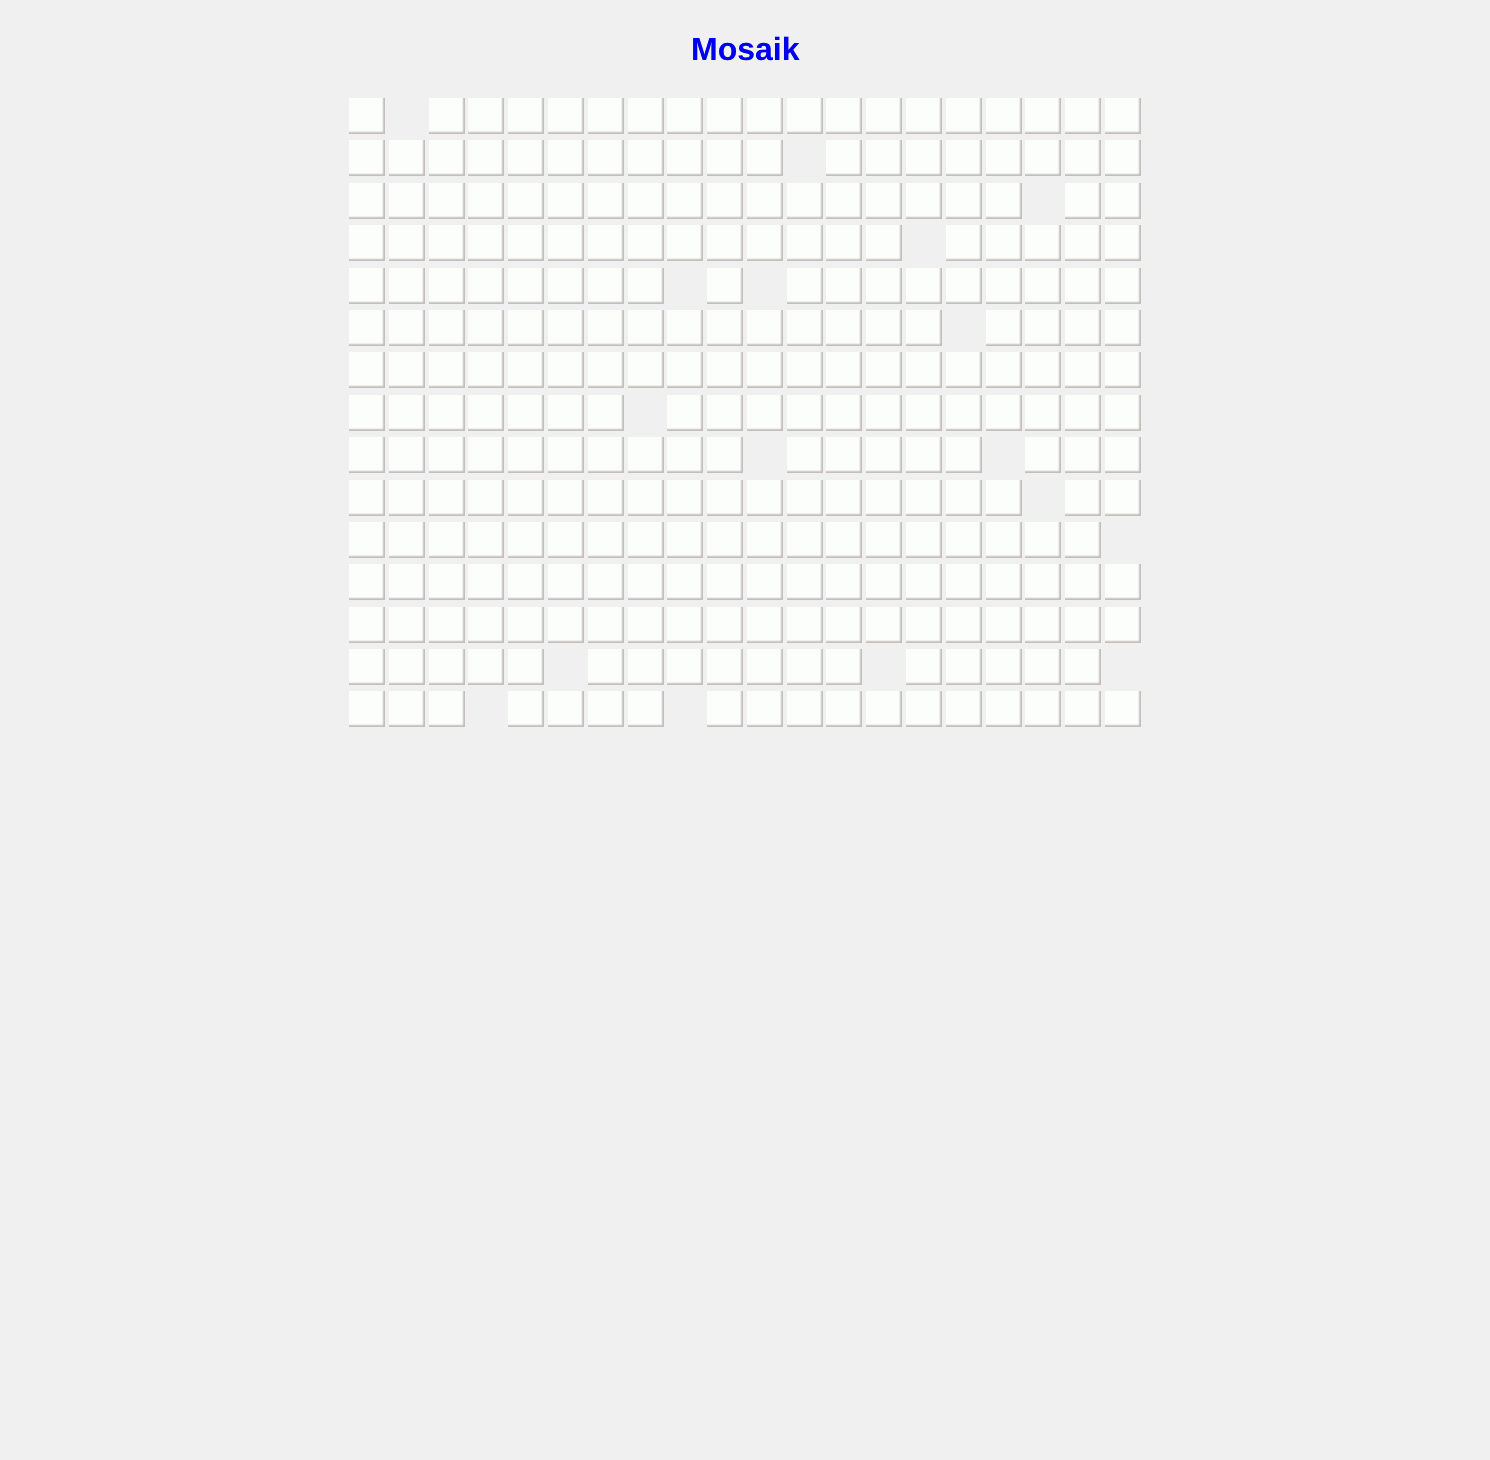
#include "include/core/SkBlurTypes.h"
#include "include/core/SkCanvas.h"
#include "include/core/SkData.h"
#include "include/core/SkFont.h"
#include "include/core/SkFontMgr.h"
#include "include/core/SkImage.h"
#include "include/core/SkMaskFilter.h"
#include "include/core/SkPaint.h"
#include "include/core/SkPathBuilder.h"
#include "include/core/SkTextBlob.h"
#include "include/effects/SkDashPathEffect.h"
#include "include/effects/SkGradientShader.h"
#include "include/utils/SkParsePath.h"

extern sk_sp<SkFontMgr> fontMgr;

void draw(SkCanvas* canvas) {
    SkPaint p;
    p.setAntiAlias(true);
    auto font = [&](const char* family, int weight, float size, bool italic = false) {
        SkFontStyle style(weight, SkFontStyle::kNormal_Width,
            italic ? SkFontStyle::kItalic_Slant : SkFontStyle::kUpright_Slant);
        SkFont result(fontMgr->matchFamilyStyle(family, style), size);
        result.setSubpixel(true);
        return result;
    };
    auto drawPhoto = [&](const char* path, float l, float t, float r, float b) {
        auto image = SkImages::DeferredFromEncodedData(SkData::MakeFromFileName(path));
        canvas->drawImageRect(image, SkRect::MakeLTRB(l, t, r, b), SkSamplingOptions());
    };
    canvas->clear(0xFFF0F0F0);
    auto font1 = font("Liberation Sans", 700, 32);
    p.setColor(0xFF0000EE);
    canvas->drawString("Mosaik", 691, 60, font1, p);
    drawPhoto("media/1.png", 349, 98, 385, 134);
    drawPhoto("media/1.png", 429, 98, 465, 134);
    drawPhoto("media/1.png", 468, 98, 504, 134);
    drawPhoto("media/1.png", 508, 98, 544, 134);
    drawPhoto("media/1.png", 548, 98, 584, 134);
    drawPhoto("media/1.png", 588, 98, 624, 134);
    drawPhoto("media/1.png", 628, 98, 664, 134);
    drawPhoto("media/1.png", 667, 98, 703, 134);
    drawPhoto("media/1.png", 707, 98, 743, 134);
    drawPhoto("media/1.png", 747, 98, 783, 134);
    drawPhoto("media/1.png", 787, 98, 823, 134);
    drawPhoto("media/1.png", 826, 98, 862, 134);
    drawPhoto("media/1.png", 866, 98, 902, 134);
    drawPhoto("media/1.png", 906, 98, 942, 134);
    drawPhoto("media/1.png", 946, 98, 982, 134);
    drawPhoto("media/1.png", 986, 98, 1022, 134);
    drawPhoto("media/1.png", 1025, 98, 1061, 134);
    drawPhoto("media/1.png", 1065, 98, 1101, 134);
    drawPhoto("media/1.png", 1105, 98, 1141, 134);
    drawPhoto("media/1.png", 349, 140, 385, 176);
    drawPhoto("media/1.png", 389, 140, 425, 176);
    drawPhoto("media/1.png", 429, 140, 465, 176);
    drawPhoto("media/1.png", 468, 140, 504, 176);
    drawPhoto("media/1.png", 508, 140, 544, 176);
    drawPhoto("media/1.png", 548, 140, 584, 176);
    drawPhoto("media/1.png", 588, 140, 624, 176);
    drawPhoto("media/1.png", 628, 140, 664, 176);
    drawPhoto("media/1.png", 667, 140, 703, 176);
    drawPhoto("media/1.png", 707, 140, 743, 176);
    drawPhoto("media/1.png", 747, 140, 783, 176);
    drawPhoto("media/1.png", 826, 140, 862, 176);
    drawPhoto("media/1.png", 866, 140, 902, 176);
    drawPhoto("media/1.png", 906, 140, 942, 176);
    drawPhoto("media/1.png", 946, 140, 982, 176);
    drawPhoto("media/1.png", 986, 140, 1022, 176);
    drawPhoto("media/1.png", 1025, 140, 1061, 176);
    drawPhoto("media/1.png", 1065, 140, 1101, 176);
    drawPhoto("media/1.png", 1105, 140, 1141, 176);
    drawPhoto("media/1.png", 349, 183, 385, 219);
    drawPhoto("media/1.png", 389, 183, 425, 219);
    drawPhoto("media/1.png", 429, 183, 465, 219);
    drawPhoto("media/1.png", 468, 183, 504, 219);
    drawPhoto("media/1.png", 508, 183, 544, 219);
    drawPhoto("media/1.png", 548, 183, 584, 219);
    drawPhoto("media/1.png", 588, 183, 624, 219);
    drawPhoto("media/1.png", 628, 183, 664, 219);
    drawPhoto("media/1.png", 667, 183, 703, 219);
    drawPhoto("media/1.png", 707, 183, 743, 219);
    drawPhoto("media/1.png", 747, 183, 783, 219);
    drawPhoto("media/1.png", 787, 183, 823, 219);
    drawPhoto("media/1.png", 826, 183, 862, 219);
    drawPhoto("media/1.png", 866, 183, 902, 219);
    drawPhoto("media/1.png", 906, 183, 942, 219);
    drawPhoto("media/1.png", 946, 183, 982, 219);
    drawPhoto("media/1.png", 986, 183, 1022, 219);
    drawPhoto("media/1.png", 1065, 183, 1101, 219);
    drawPhoto("media/1.png", 1105, 183, 1141, 219);
    drawPhoto("media/1.png", 349, 225, 385, 261);
    drawPhoto("media/1.png", 389, 225, 425, 261);
    drawPhoto("media/1.png", 429, 225, 465, 261);
    drawPhoto("media/1.png", 468, 225, 504, 261);
    drawPhoto("media/1.png", 508, 225, 544, 261);
    drawPhoto("media/1.png", 548, 225, 584, 261);
    drawPhoto("media/1.png", 588, 225, 624, 261);
    drawPhoto("media/1.png", 628, 225, 664, 261);
    drawPhoto("media/1.png", 667, 225, 703, 261);
    drawPhoto("media/1.png", 707, 225, 743, 261);
    drawPhoto("media/1.png", 747, 225, 783, 261);
    drawPhoto("media/1.png", 787, 225, 823, 261);
    drawPhoto("media/1.png", 826, 225, 862, 261);
    drawPhoto("media/1.png", 866, 225, 902, 261);
    drawPhoto("media/1.png", 946, 225, 982, 261);
    drawPhoto("media/1.png", 986, 225, 1022, 261);
    drawPhoto("media/1.png", 1025, 225, 1061, 261);
    drawPhoto("media/1.png", 1065, 225, 1101, 261);
    drawPhoto("media/1.png", 1105, 225, 1141, 261);
    drawPhoto("media/1.png", 349, 268, 385, 304);
    drawPhoto("media/1.png", 389, 268, 425, 304);
    drawPhoto("media/1.png", 429, 268, 465, 304);
    drawPhoto("media/1.png", 468, 268, 504, 304);
    drawPhoto("media/1.png", 508, 268, 544, 304);
    drawPhoto("media/1.png", 548, 268, 584, 304);
    drawPhoto("media/1.png", 588, 268, 624, 304);
    drawPhoto("media/1.png", 628, 268, 664, 304);
    drawPhoto("media/1.png", 707, 268, 743, 304);
    drawPhoto("media/1.png", 787, 268, 823, 304);
    drawPhoto("media/1.png", 826, 268, 862, 304);
    drawPhoto("media/1.png", 866, 268, 902, 304);
    drawPhoto("media/1.png", 906, 268, 942, 304);
    drawPhoto("media/1.png", 946, 268, 982, 304);
    drawPhoto("media/1.png", 986, 268, 1022, 304);
    drawPhoto("media/1.png", 1025, 268, 1061, 304);
    drawPhoto("media/1.png", 1065, 268, 1101, 304);
    drawPhoto("media/1.png", 1105, 268, 1141, 304);
    drawPhoto("media/1.png", 349, 310, 385, 346);
    drawPhoto("media/1.png", 389, 310, 425, 346);
    drawPhoto("media/1.png", 429, 310, 465, 346);
    drawPhoto("media/1.png", 468, 310, 504, 346);
    drawPhoto("media/1.png", 508, 310, 544, 346);
    drawPhoto("media/1.png", 548, 310, 584, 346);
    drawPhoto("media/1.png", 588, 310, 624, 346);
    drawPhoto("media/1.png", 628, 310, 664, 346);
    drawPhoto("media/1.png", 667, 310, 703, 346);
    drawPhoto("media/1.png", 707, 310, 743, 346);
    drawPhoto("media/1.png", 747, 310, 783, 346);
    drawPhoto("media/1.png", 787, 310, 823, 346);
    drawPhoto("media/1.png", 826, 310, 862, 346);
    drawPhoto("media/1.png", 866, 310, 902, 346);
    drawPhoto("media/1.png", 906, 310, 942, 346);
    drawPhoto("media/1.png", 986, 310, 1022, 346);
    drawPhoto("media/1.png", 1025, 310, 1061, 346);
    drawPhoto("media/1.png", 1065, 310, 1101, 346);
    drawPhoto("media/1.png", 1105, 310, 1141, 346);
    drawPhoto("media/1.png", 349, 352, 385, 388);
    drawPhoto("media/1.png", 389, 352, 425, 388);
    drawPhoto("media/1.png", 429, 352, 465, 388);
    drawPhoto("media/1.png", 468, 352, 504, 388);
    drawPhoto("media/1.png", 508, 352, 544, 388);
    drawPhoto("media/1.png", 548, 352, 584, 388);
    drawPhoto("media/1.png", 588, 352, 624, 388);
    drawPhoto("media/1.png", 628, 352, 664, 388);
    drawPhoto("media/1.png", 667, 352, 703, 388);
    drawPhoto("media/1.png", 707, 352, 743, 388);
    drawPhoto("media/1.png", 747, 352, 783, 388);
    drawPhoto("media/1.png", 787, 352, 823, 388);
    drawPhoto("media/1.png", 826, 352, 862, 388);
    drawPhoto("media/1.png", 866, 352, 902, 388);
    drawPhoto("media/1.png", 906, 352, 942, 388);
    drawPhoto("media/1.png", 946, 352, 982, 388);
    drawPhoto("media/1.png", 986, 352, 1022, 388);
    drawPhoto("media/1.png", 1025, 352, 1061, 388);
    drawPhoto("media/1.png", 1065, 352, 1101, 388);
    drawPhoto("media/1.png", 1105, 352, 1141, 388);
    drawPhoto("media/1.png", 349, 395, 385, 431);
    drawPhoto("media/1.png", 389, 395, 425, 431);
    drawPhoto("media/1.png", 429, 395, 465, 431);
    drawPhoto("media/1.png", 468, 395, 504, 431);
    drawPhoto("media/1.png", 508, 395, 544, 431);
    drawPhoto("media/1.png", 548, 395, 584, 431);
    drawPhoto("media/1.png", 588, 395, 624, 431);
    drawPhoto("media/1.png", 667, 395, 703, 431);
    drawPhoto("media/1.png", 707, 395, 743, 431);
    drawPhoto("media/1.png", 747, 395, 783, 431);
    drawPhoto("media/1.png", 787, 395, 823, 431);
    drawPhoto("media/1.png", 826, 395, 862, 431);
    drawPhoto("media/1.png", 866, 395, 902, 431);
    drawPhoto("media/1.png", 906, 395, 942, 431);
    drawPhoto("media/1.png", 946, 395, 982, 431);
    drawPhoto("media/1.png", 986, 395, 1022, 431);
    drawPhoto("media/1.png", 1025, 395, 1061, 431);
    drawPhoto("media/1.png", 1065, 395, 1101, 431);
    drawPhoto("media/1.png", 1105, 395, 1141, 431);
    drawPhoto("media/1.png", 349, 437, 385, 473);
    drawPhoto("media/1.png", 389, 437, 425, 473);
    drawPhoto("media/1.png", 429, 437, 465, 473);
    drawPhoto("media/1.png", 468, 437, 504, 473);
    drawPhoto("media/1.png", 508, 437, 544, 473);
    drawPhoto("media/1.png", 548, 437, 584, 473);
    drawPhoto("media/1.png", 588, 437, 624, 473);
    drawPhoto("media/1.png", 628, 437, 664, 473);
    drawPhoto("media/1.png", 667, 437, 703, 473);
    drawPhoto("media/1.png", 707, 437, 743, 473);
    drawPhoto("media/1.png", 787, 437, 823, 473);
    drawPhoto("media/1.png", 826, 437, 862, 473);
    drawPhoto("media/1.png", 866, 437, 902, 473);
    drawPhoto("media/1.png", 906, 437, 942, 473);
    drawPhoto("media/1.png", 946, 437, 982, 473);
    drawPhoto("media/1.png", 1025, 437, 1061, 473);
    drawPhoto("media/1.png", 1065, 437, 1101, 473);
    drawPhoto("media/1.png", 1105, 437, 1141, 473);
    drawPhoto("media/1.png", 349, 480, 385, 516);
    drawPhoto("media/1.png", 389, 480, 425, 516);
    drawPhoto("media/1.png", 429, 480, 465, 516);
    drawPhoto("media/1.png", 468, 480, 504, 516);
    drawPhoto("media/1.png", 508, 480, 544, 516);
    drawPhoto("media/1.png", 548, 480, 584, 516);
    drawPhoto("media/1.png", 588, 480, 624, 516);
    drawPhoto("media/1.png", 628, 480, 664, 516);
    drawPhoto("media/1.png", 667, 480, 703, 516);
    drawPhoto("media/1.png", 707, 480, 743, 516);
    drawPhoto("media/1.png", 747, 480, 783, 516);
    drawPhoto("media/1.png", 787, 480, 823, 516);
    drawPhoto("media/1.png", 826, 480, 862, 516);
    drawPhoto("media/1.png", 866, 480, 902, 516);
    drawPhoto("media/1.png", 906, 480, 942, 516);
    drawPhoto("media/1.png", 946, 480, 982, 516);
    drawPhoto("media/1.png", 986, 480, 1022, 516);
    drawPhoto("media/1.png", 1065, 480, 1101, 516);
    drawPhoto("media/1.png", 1105, 480, 1141, 516);
    drawPhoto("media/1.png", 349, 522, 385, 558);
    drawPhoto("media/1.png", 389, 522, 425, 558);
    drawPhoto("media/1.png", 429, 522, 465, 558);
    drawPhoto("media/1.png", 468, 522, 504, 558);
    drawPhoto("media/1.png", 508, 522, 544, 558);
    drawPhoto("media/1.png", 548, 522, 584, 558);
    drawPhoto("media/1.png", 588, 522, 624, 558);
    drawPhoto("media/1.png", 628, 522, 664, 558);
    drawPhoto("media/1.png", 667, 522, 703, 558);
    drawPhoto("media/1.png", 707, 522, 743, 558);
    drawPhoto("media/1.png", 747, 522, 783, 558);
    drawPhoto("media/1.png", 787, 522, 823, 558);
    drawPhoto("media/1.png", 826, 522, 862, 558);
    drawPhoto("media/1.png", 866, 522, 902, 558);
    drawPhoto("media/1.png", 906, 522, 942, 558);
    drawPhoto("media/1.png", 946, 522, 982, 558);
    drawPhoto("media/1.png", 986, 522, 1022, 558);
    drawPhoto("media/1.png", 1025, 522, 1061, 558);
    drawPhoto("media/1.png", 1065, 522, 1101, 558);
    drawPhoto("media/1.png", 349, 564, 385, 600);
    drawPhoto("media/1.png", 389, 564, 425, 600);
    drawPhoto("media/1.png", 429, 564, 465, 600);
    drawPhoto("media/1.png", 468, 564, 504, 600);
    drawPhoto("media/1.png", 508, 564, 544, 600);
    drawPhoto("media/1.png", 548, 564, 584, 600);
    drawPhoto("media/1.png", 588, 564, 624, 600);
    drawPhoto("media/1.png", 628, 564, 664, 600);
    drawPhoto("media/1.png", 667, 564, 703, 600);
    drawPhoto("media/1.png", 707, 564, 743, 600);
    drawPhoto("media/1.png", 747, 564, 783, 600);
    drawPhoto("media/1.png", 787, 564, 823, 600);
    drawPhoto("media/1.png", 826, 564, 862, 600);
    drawPhoto("media/1.png", 866, 564, 902, 600);
    drawPhoto("media/1.png", 906, 564, 942, 600);
    drawPhoto("media/1.png", 946, 564, 982, 600);
    drawPhoto("media/1.png", 986, 564, 1022, 600);
    drawPhoto("media/1.png", 1025, 564, 1061, 600);
    drawPhoto("media/1.png", 1065, 564, 1101, 600);
    drawPhoto("media/1.png", 1105, 564, 1141, 600);
    drawPhoto("media/1.png", 349, 607, 385, 643);
    drawPhoto("media/1.png", 389, 607, 425, 643);
    drawPhoto("media/1.png", 429, 607, 465, 643);
    drawPhoto("media/1.png", 468, 607, 504, 643);
    drawPhoto("media/1.png", 508, 607, 544, 643);
    drawPhoto("media/1.png", 548, 607, 584, 643);
    drawPhoto("media/1.png", 588, 607, 624, 643);
    drawPhoto("media/1.png", 628, 607, 664, 643);
    drawPhoto("media/1.png", 667, 607, 703, 643);
    drawPhoto("media/1.png", 707, 607, 743, 643);
    drawPhoto("media/1.png", 747, 607, 783, 643);
    drawPhoto("media/1.png", 787, 607, 823, 643);
    drawPhoto("media/1.png", 826, 607, 862, 643);
    drawPhoto("media/1.png", 866, 607, 902, 643);
    drawPhoto("media/1.png", 906, 607, 942, 643);
    drawPhoto("media/1.png", 946, 607, 982, 643);
    drawPhoto("media/1.png", 986, 607, 1022, 643);
    drawPhoto("media/1.png", 1025, 607, 1061, 643);
    drawPhoto("media/1.png", 1065, 607, 1101, 643);
    drawPhoto("media/1.png", 1105, 607, 1141, 643);
    drawPhoto("media/1.png", 349, 649, 385, 685);
    drawPhoto("media/1.png", 389, 649, 425, 685);
    drawPhoto("media/1.png", 429, 649, 465, 685);
    drawPhoto("media/1.png", 468, 649, 504, 685);
    drawPhoto("media/1.png", 508, 649, 544, 685);
    drawPhoto("media/1.png", 588, 649, 624, 685);
    drawPhoto("media/1.png", 628, 649, 664, 685);
    drawPhoto("media/1.png", 667, 649, 703, 685);
    drawPhoto("media/1.png", 707, 649, 743, 685);
    drawPhoto("media/1.png", 747, 649, 783, 685);
    drawPhoto("media/1.png", 787, 649, 823, 685);
    drawPhoto("media/1.png", 826, 649, 862, 685);
    drawPhoto("media/1.png", 906, 649, 942, 685);
    drawPhoto("media/1.png", 946, 649, 982, 685);
    drawPhoto("media/1.png", 986, 649, 1022, 685);
    drawPhoto("media/1.png", 1025, 649, 1061, 685);
    drawPhoto("media/1.png", 1065, 649, 1101, 685);
    drawPhoto("media/1.png", 349, 691, 385, 727);
    drawPhoto("media/1.png", 389, 691, 425, 727);
    drawPhoto("media/1.png", 429, 691, 465, 727);
    drawPhoto("media/1.png", 508, 691, 544, 727);
    drawPhoto("media/1.png", 548, 691, 584, 727);
    drawPhoto("media/1.png", 588, 691, 624, 727);
    drawPhoto("media/1.png", 628, 691, 664, 727);
    drawPhoto("media/1.png", 707, 691, 743, 727);
    drawPhoto("media/1.png", 747, 691, 783, 727);
    drawPhoto("media/1.png", 787, 691, 823, 727);
    drawPhoto("media/1.png", 826, 691, 862, 727);
    drawPhoto("media/1.png", 866, 691, 902, 727);
    drawPhoto("media/1.png", 906, 691, 942, 727);
    drawPhoto("media/1.png", 946, 691, 982, 727);
    drawPhoto("media/1.png", 986, 691, 1022, 727);
    drawPhoto("media/1.png", 1025, 691, 1061, 727);
    drawPhoto("media/1.png", 1065, 691, 1101, 727);
    drawPhoto("media/1.png", 1105, 691, 1141, 727);
}
